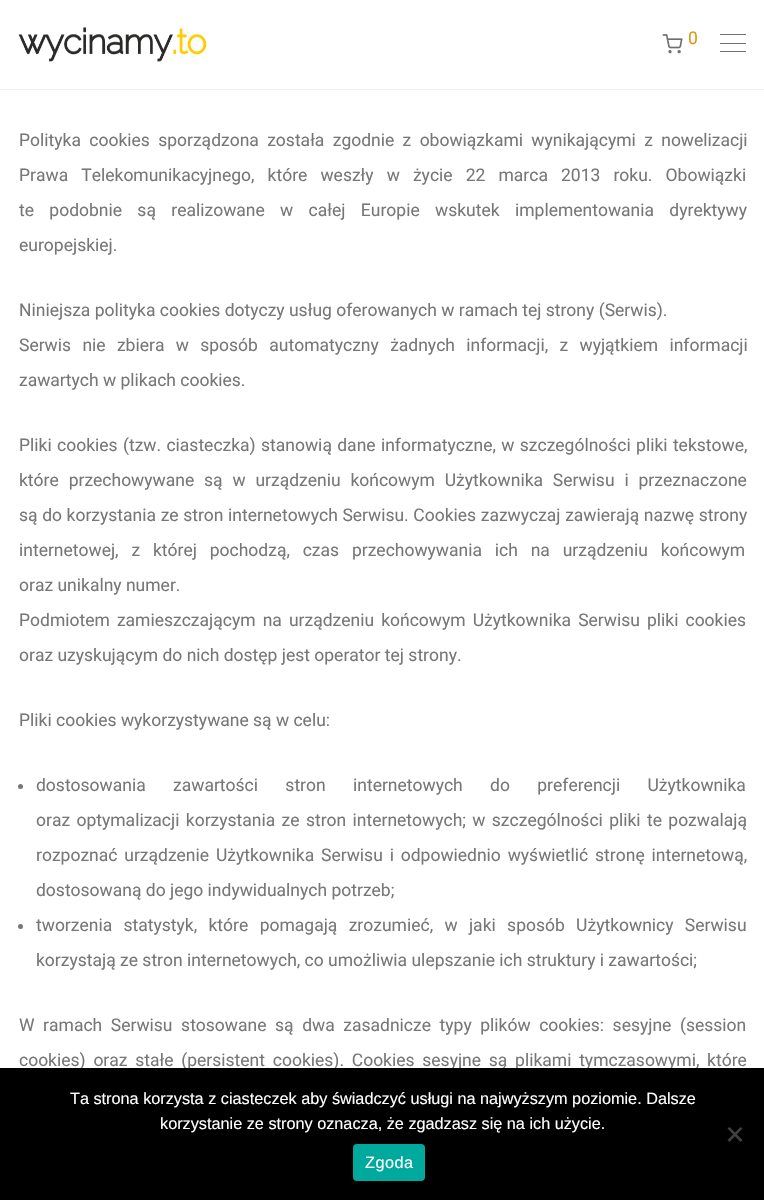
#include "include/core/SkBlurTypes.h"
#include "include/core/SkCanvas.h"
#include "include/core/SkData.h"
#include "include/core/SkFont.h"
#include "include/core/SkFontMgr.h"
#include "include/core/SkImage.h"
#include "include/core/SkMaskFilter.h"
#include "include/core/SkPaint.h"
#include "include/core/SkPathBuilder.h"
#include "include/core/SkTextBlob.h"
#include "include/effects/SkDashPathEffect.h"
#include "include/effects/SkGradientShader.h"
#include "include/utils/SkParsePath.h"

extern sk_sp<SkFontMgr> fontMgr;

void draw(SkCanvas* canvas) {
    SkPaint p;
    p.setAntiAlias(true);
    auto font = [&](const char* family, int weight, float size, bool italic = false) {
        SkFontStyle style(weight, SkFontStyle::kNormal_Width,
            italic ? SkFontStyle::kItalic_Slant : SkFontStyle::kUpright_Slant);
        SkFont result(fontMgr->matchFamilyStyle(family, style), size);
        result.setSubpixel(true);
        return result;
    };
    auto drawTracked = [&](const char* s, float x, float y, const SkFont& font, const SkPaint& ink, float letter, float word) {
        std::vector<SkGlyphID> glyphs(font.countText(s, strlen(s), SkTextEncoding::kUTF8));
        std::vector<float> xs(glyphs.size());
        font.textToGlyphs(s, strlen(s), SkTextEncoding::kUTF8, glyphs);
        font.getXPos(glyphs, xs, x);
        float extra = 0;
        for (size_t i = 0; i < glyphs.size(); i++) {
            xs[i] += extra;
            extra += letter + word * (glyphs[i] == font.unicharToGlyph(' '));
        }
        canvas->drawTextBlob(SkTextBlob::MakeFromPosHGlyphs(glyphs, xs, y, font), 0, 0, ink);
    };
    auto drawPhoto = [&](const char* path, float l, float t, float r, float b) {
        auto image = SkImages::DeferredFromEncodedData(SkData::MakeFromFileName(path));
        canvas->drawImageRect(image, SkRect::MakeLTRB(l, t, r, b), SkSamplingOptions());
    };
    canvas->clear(0xFFFFFFFF);
    p.setColor(0xFFEEEEEE);
    canvas->drawRect(SkRect::MakeLTRB(0, 89, 764, 90), p);
    drawPhoto("media/1.png", 18, 27, 207, 62);
    drawPhoto("media/2.png", 662, 34, 683, 54);
    auto font1 = font("Roboto", 400, 17.5f);
    p.setColor(0xFFDC9814);
    canvas->drawString("0", 688, 44, font1, p);
    {
        const struct { float l, t, r, b; SkColor color; } items[] = {
            {720, 34, 746, 35, 0xFF707070},
            {720, 43, 746, 44, 0xFF707070},
            {720, 51, 746, 52, 0xFF707070},
        };
        for (auto [l, t, r, b, color] : items) {
            p.setColor(color);
            canvas->drawRect(SkRect::MakeLTRB(l, t, r, b), p);
        }
    }
    p.setColor(0xFF777777);
    drawTracked("Polityka cookies sporządzona została zgodnie z obowiązkami wynikającymi z nowelizacji", 19, 146, font1, p, 0, 4);
    drawTracked("Prawa Telekomunikacyjnego, które weszły w życie 22 marca 2013 roku. Obowiązki", 19, 181, font1, p, 0, 8.75f);
    drawTracked("te podobnie są realizowane w całej Europie wskutek implementowania dyrektywy", 19, 216, font1, p, 0, 11);
    canvas->drawString("europejskiej.", 19, 251, font1, p);
    canvas->drawString("Niniejsza polityka cookies dotyczy usług oferowanych w ramach tej strony (Serwis).", 19, 316, font1, p);
    drawTracked("Serwis nie zbiera w sposób automatyczny żadnych informacji, z wyjątkiem informacji", 19, 351, font1, p, 0, 7);
    canvas->drawString("zawartych w plikach cookies.", 19, 386, font1, p);
    drawTracked("Pliki cookies (tzw. ciasteczka) stanowią dane informatyczne, w szczególności pliki tekstowe,", 19, 451, font1, p, 0, 1);
    drawTracked("które przechowywane są w urządzeniu końcowym Użytkownika Serwisu i przeznaczone", 19, 486, font1, p, 0, 5.5f);
    drawTracked("są do korzystania ze stron internetowych Serwisu. Cookies zazwyczaj zawierają nazwę strony", 19, 521, font1, p, 0, 0.25f);
    drawTracked("internetowej, z której pochodzą, czas przechowywania ich na urządzeniu końcowym", 19, 556, font1, p, 0, 8.5f);
    canvas->drawString("oraz unikalny numer.", 19, 591, font1, p);
    drawTracked("Podmiotem zamieszczającym na urządzeniu końcowym Użytkownika Serwisu pliki cookies", 19, 626, font1, p, 0, 2.75f);
    canvas->drawString("oraz uzyskującym do nich dostęp jest operator tej strony.", 19, 661, font1, p);
    canvas->drawString("Pliki cookies wykorzystywane są w celu:", 19, 726, font1, p);
    canvas->drawCircle(20.5f, 786.5f, 2.5f, p);
    drawTracked("dostosowania zawartości stron internetowych do preferencji Użytkownika", 36, 791, font1, p, 0, 23);
    drawTracked("oraz optymalizacji korzystania ze stron internetowych; w szczególności pliki te pozwalają", 36, 826, font1, p, 0, 2);
    drawTracked("rozpoznać urządzenie Użytkownika Serwisu i odpowiednio wyświetlić stronę internetową,", 36, 861, font1, p, 0, 2.5f);
    canvas->drawString("dostosowaną do jego indywidualnych potrzeb;", 36, 896, font1, p);
    canvas->drawCircle(20.5f, 926.5f, 2.5f, p);
    drawTracked("tworzenia statystyk, które pomagają zrozumieć, w jaki sposób Użytkownicy Serwisu", 36, 931, font1, p, 0, 7);
    canvas->drawString("korzystają ze stron internetowych, co umożliwia ulepszanie ich struktury i zawartości;", 36, 966, font1, p);
    drawTracked("W ramach Serwisu stosowane są dwa zasadnicze typy plików cookies: sesyjne (session", 19, 1031, font1, p, 0, 4.25f);
    drawTracked("cookies) oraz stałe (persistent cookies). Cookies sesyjne są plikami tymczasowymi, które", 19, 1066, font1, p, 0, 3.4f);
    p.setColor(0xFF000000);
    canvas->drawRect(SkRect::MakeLTRB(0, 1068, 764, 1200), p);
    auto font2 = font("Liberation Sans", 400, 16.25f);
    p.setColor(0xFFFFFFFF);
    canvas->drawString("Ta strona korzysta z ciasteczek aby świadczyć usługi na najwyższym poziomie. Dalsze", 70, 1104, font2, p);
    canvas->drawString("korzystanie ze strony oznacza, że zgadzasz się na ich użycie.", 160, 1129, font2, p);
    p.setColor(0xFF404040);
    canvas->drawPath(SkPathBuilder().moveTo(740.5f, 1127).lineTo(742.5f, 1128.5f).lineTo(729.5f, 1142).lineTo(727.5f, 1140).close().detach(), p);
    canvas->drawPath(SkPathBuilder().moveTo(727.5f, 1128.5f).lineTo(729.5f, 1127).lineTo(742.5f, 1140).lineTo(740.5f, 1142).close().detach(), p);
    p.setColor(0xFF00A99D);
    canvas->drawRoundRect(SkRect::MakeLTRB(353, 1144, 425, 1181), 4, 4, p);
    p.setColor(0xFFFFFFFF);
    drawTracked("Zgoda", 365, 1168, font2, p, 0.5f, 0);
}
